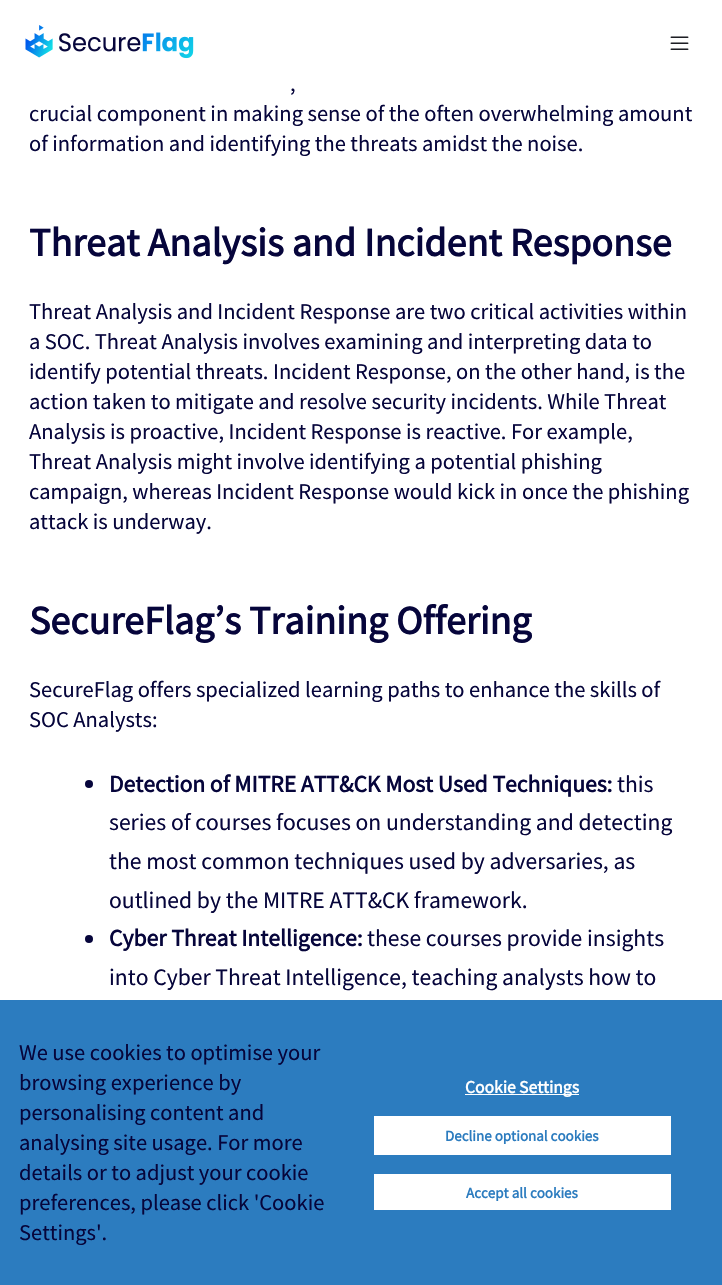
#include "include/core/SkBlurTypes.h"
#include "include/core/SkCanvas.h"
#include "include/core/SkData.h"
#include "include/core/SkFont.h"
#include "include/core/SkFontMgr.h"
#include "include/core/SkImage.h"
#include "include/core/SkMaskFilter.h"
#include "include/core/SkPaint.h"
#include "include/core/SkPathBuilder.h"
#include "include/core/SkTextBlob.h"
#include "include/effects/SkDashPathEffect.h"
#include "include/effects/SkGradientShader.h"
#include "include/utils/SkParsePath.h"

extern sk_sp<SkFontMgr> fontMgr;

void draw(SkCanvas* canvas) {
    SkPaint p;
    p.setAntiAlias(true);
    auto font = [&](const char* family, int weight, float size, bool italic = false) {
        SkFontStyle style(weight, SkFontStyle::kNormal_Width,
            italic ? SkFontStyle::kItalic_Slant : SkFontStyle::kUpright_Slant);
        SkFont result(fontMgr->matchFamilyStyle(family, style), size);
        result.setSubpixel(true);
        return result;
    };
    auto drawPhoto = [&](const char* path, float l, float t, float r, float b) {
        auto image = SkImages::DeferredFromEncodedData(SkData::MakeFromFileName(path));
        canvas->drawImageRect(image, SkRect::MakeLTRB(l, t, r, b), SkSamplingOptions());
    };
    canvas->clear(0xFFFFFFFF);
    drawPhoto("media/1.png", 25, 25, 194, 59);
    drawPhoto("media/2.png", 670, 36, 689, 50);
    auto font1 = font("Source Sans Pro", 400, 22.5f);
    p.setColor(0xFF06053B);
    {
        const struct { const char* s; float x, y; } items[] = {
            {",", 290, 91},
            {"crucial component in making sense of the often overwhelming amount", 29, 121},
            {"of information and identifying the threats amidst the noise.", 29, 151},
        };
        for (auto [s, x, y] : items) {
            canvas->drawString(s, x, y, font1, p);
        }
    }
    auto font2 = font("Source Sans Pro", 700, 40);
    canvas->drawString("Threat Analysis and Incident Response", 29, 256, font2, p);
    {
        const struct { const char* s; float x, y; } items[] = {
            {"Threat Analysis and Incident Response are two critical activities within", 29, 319},
            {"a SOC. Threat Analysis involves examining and interpreting data to", 29, 349},
            {"identify potential threats. Incident Response, on the other hand, is the", 29, 379},
            {"action taken to mitigate and resolve security incidents. While Threat", 29, 409},
            {"Analysis is proactive, Incident Response is reactive. For example,", 29, 439},
            {"Threat Analysis might involve identifying a potential phishing", 29, 469},
            {"campaign, whereas Incident Response would kick in once the phishing", 29, 499},
            {"attack is underway.", 29, 529},
        };
        for (auto [s, x, y] : items) {
            canvas->drawString(s, x, y, font1, p);
        }
    }
    canvas->drawString("SecureFlag’s Training Offering", 29, 634, font2, p);
    canvas->drawString("SecureFlag offers specialized learning paths to enhance the skills of", 29, 697, font1, p);
    canvas->drawString("SOC Analysts:", 29, 727, font1, p);
    canvas->drawCircle(89, 784, 4, p);
    auto font3 = font("Source Sans Pro", 700, 23.6f);
    canvas->drawString("Detection of MITRE ATT&CK Most Used Techniques:", 109, 792, font3, p);
    auto font4 = font("Source Sans Pro", 400, 23.6f);
    {
        const struct { const char* s; float x, y; } items[] = {
            {"this", 617, 792},
            {"series of courses focuses on understanding and detecting", 109, 830},
            {"the most common techniques used by adversaries, as", 109, 869},
            {"outlined by the MITRE ATT&CK framework.", 109, 908},
        };
        for (auto [s, x, y] : items) {
            canvas->drawString(s, x, y, font4, p);
        }
    }
    canvas->drawCircle(89, 939, 4, p);
    canvas->drawString("Cyber Threat Intelligence:", 109, 946, font3, p);
    canvas->drawString("these courses provide insights", 367, 946, font4, p);
    canvas->drawString("into Cyber Threat Intelligence, teaching analysts how to", 109, 985, font4, p);
    p.setColor(0xFF2C7CBF);
    canvas->drawRect(SkRect::MakeLTRB(0, 1000, 722, 1285), p);
    p.setColor(0xFF06053B);
    {
        const struct { const char* s; float x, y; } items[] = {
            {"We use cookies to optimise your", 19, 1060},
            {"browsing experience by", 19, 1090},
            {"personalising content and", 19, 1120},
            {"analysing site usage. For more", 19, 1150},
            {"details or to adjust your cookie", 19, 1180},
            {"preferences, please click 'Cookie", 19, 1210},
            {"Settings'.", 19, 1240},
        };
        for (auto [s, x, y] : items) {
            canvas->drawString(s, x, y, font1, p);
        }
    }
    p.setColor(0xFFFFFFFF);
    canvas->drawRect(SkRect::MakeLTRB(465, 1094, 579, 1095), p);
    auto font5 = font("Source Sans Pro", 700, 17.5f);
    canvas->drawString("Cookie Settings", 465, 1093, font5, p);
    canvas->drawRect(SkRect::MakeLTRB(374, 1116, 671, 1155), p);
    auto font6 = font("Source Sans Pro", 700, 15);
    p.setColor(0xFF2C7CBF);
    canvas->drawString("Decline optional cookies", 445, 1141, font6, p);
    p.setColor(0xFFFFFFFF);
    canvas->drawRect(SkRect::MakeLTRB(374, 1174, 671, 1210), p);
    p.setColor(0xFF2C7CBF);
    canvas->drawString("Accept all cookies", 466, 1198, font6, p);
}
